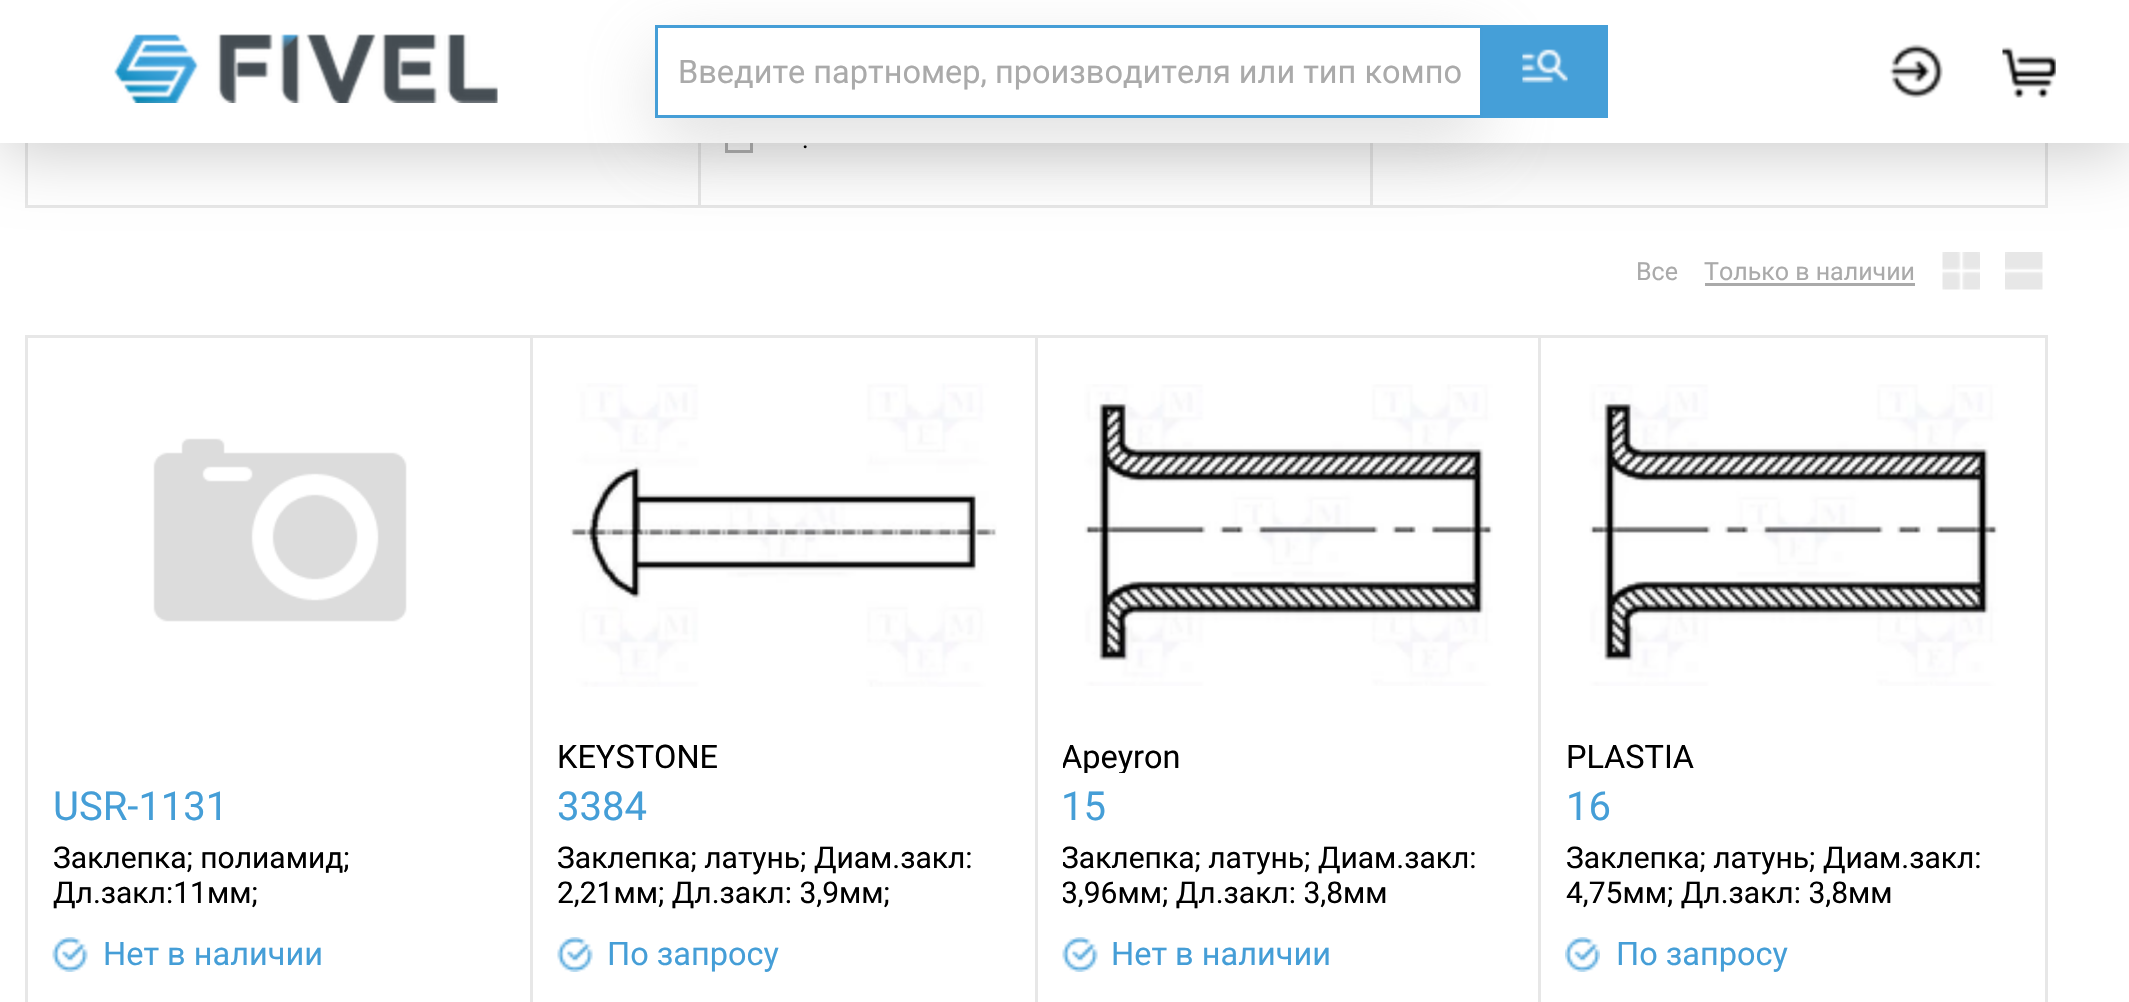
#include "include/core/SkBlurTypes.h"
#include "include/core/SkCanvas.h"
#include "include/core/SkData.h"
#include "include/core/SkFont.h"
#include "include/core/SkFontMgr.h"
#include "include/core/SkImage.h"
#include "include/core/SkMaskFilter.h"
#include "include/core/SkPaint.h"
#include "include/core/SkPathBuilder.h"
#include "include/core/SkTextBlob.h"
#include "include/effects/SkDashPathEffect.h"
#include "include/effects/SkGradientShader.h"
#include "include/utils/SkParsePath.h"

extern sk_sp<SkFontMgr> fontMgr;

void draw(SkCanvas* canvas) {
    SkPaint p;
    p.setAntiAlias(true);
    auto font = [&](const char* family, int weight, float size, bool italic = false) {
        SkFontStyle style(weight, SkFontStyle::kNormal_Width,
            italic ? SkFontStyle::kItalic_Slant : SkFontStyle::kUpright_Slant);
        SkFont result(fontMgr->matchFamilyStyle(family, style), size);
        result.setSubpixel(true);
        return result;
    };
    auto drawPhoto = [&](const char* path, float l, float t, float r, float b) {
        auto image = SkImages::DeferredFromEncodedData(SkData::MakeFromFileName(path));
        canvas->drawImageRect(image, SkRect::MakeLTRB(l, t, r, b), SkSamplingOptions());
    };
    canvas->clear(0xFFFFFFFF);
    p.setStyle(SkPaint::kStroke_Style);
    p.setStrokeWidth(3);
    p.setColor(0xFFE7E7E7);
    canvas->drawRect(SkRect::MakeLTRB(26.5f, -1.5f, 701.5f, 206.5f), p);
    p.setStyle(SkPaint::kFill_Style);
    p.setColor(0xFFFFFFFF);
    canvas->drawRect(SkRect::MakeLTRB(701, 143, 703, 205), p);
    p.setStyle(SkPaint::kStroke_Style);
    p.setColor(0xFFE7E7E7);
    canvas->drawRect(SkRect::MakeLTRB(699.5f, -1.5f, 1373.5f, 206.5f), p);
    p.setColor(0xFFAAAAAA);
    canvas->drawRect(SkRect::MakeLTRB(726.5f, 126.5f, 751.5f, 151.5f), p);
    p.setStyle(SkPaint::kFill_Style);
    p.setColor(0xFFFFFFFF);
    canvas->drawRect(SkRect::MakeLTRB(1373, 143, 1375, 205), p);
    p.setStyle(SkPaint::kStroke_Style);
    p.setColor(0xFFE7E7E7);
    canvas->drawRect(SkRect::MakeLTRB(1371.5f, -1.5f, 2046.5f, 206.5f), p);
    p.setStyle(SkPaint::kFill_Style);
    p.setColor(0x33000000);
    p.setMaskFilter(SkMaskFilter::MakeBlur(kNormal_SkBlurStyle, 32.5f));
    canvas->drawRect(SkRect::MakeLTRB(0, 10, 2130, 153), p);
    p.setMaskFilter(nullptr);
    p.setColor(0xFFFFFFFF);
    canvas->drawRect(SkRect::MakeLTRB(0, 0, 2129, 143), p);
    drawPhoto("media/1.png", 114, 34, 498, 103);
    p.setColor(0x5EAAAAAA);
    p.setMaskFilter(SkMaskFilter::MakeBlur(kNormal_SkBlurStyle, 35));
    canvas->drawRect(SkRect::MakeLTRB(655, 50, 1483, 143), p);
    p.setMaskFilter(nullptr);
    p.setColor(0xFFFFFFFF);
    canvas->drawRect(SkRect::MakeLTRB(656.5f, 26.5f, 1481.5f, 116.5f), p);
    p.setStyle(SkPaint::kStroke_Style);
    p.setColor(0xFF459ED7);
    canvas->drawRect(SkRect::MakeLTRB(656.5f, 26.5f, 1481.5f, 116.5f), p);
    auto font1 = font("Roboto", 400, 32.5f);
    p.setStyle(SkPaint::kFill_Style);
    p.setColor(0xFFAAAAAA);
    canvas->drawString("Введите партномер, производителя или тип компо", 678, 83, font1, p);
    p.setColor(0xFF459FD8);
    canvas->drawRect(SkRect::MakeLTRB(1483, 25, 1608, 118), p);
    drawPhoto("media/2.png", 1522, 49, 1568, 83);
    drawPhoto("media/3.png", 1889, 44, 1943, 98);
    drawPhoto("media/4.png", 2002, 47, 2056, 98);
    auto font2 = font("Roboto", 400, 25);
    p.setColor(0xFF000000);
    canvas->drawString(".", 802, 148, font2, p);
    p.setColor(0xFFAAAAAA);
    canvas->drawString("Все", 1636, 280, font2, p);
    canvas->drawString("Только в наличии", 1704, 280, font2, p);
    canvas->drawRect(SkRect::MakeLTRB(1705, 283, 1915, 286), p);
    drawPhoto("media/5.png", 1942, 252, 1980, 290);
    drawPhoto("media/6.png", 2005, 252, 2043, 290);
    p.setStyle(SkPaint::kStroke_Style);
    p.setColor(0xFFE7E7E7);
    canvas->drawRect(SkRect::MakeLTRB(26.5f, 336.5f, 533.5f, 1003.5f), p);
    drawPhoto("media/7.png", 153, 438, 407, 622);
    auto font3 = font("Roboto", 400, 40);
    p.setStyle(SkPaint::kFill_Style);
    p.setColor(0xFF459ED7);
    canvas->drawString("USR-1131", 53, 820, font3, p);
    auto font4 = font("Roboto", 400, 30);
    p.setColor(0xFF000000);
    canvas->drawString("Заклепка; полиамид;", 53, 868, font4, p);
    canvas->drawString("Дл.закл:11мм;", 53, 903, font4, p);
    drawPhoto("media/8.png", 52, 937, 88, 972);
    p.setColor(0xFF459ED7);
    canvas->drawString("Нет в наличии", 103, 965, font1, p);
    p.setColor(0xFFFFFFFF);
    canvas->drawRect(SkRect::MakeLTRB(533, 338, 535, 1002), p);
    p.setStyle(SkPaint::kStroke_Style);
    p.setColor(0xFFE7E7E7);
    canvas->drawRect(SkRect::MakeLTRB(531.5f, 336.5f, 1038.5f, 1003.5f), p);
    drawPhoto("media/9.png", 570, 383, 997, 687);
    p.setStyle(SkPaint::kFill_Style);
    p.setColor(0xFF000000);
    canvas->drawString("KEYSTONE", 557, 768, font1, p);
    p.setColor(0xFF459ED7);
    canvas->drawString("3384", 557, 820, font3, p);
    p.setColor(0xFF000000);
    canvas->drawString("Заклепка; латунь; Диам.закл:", 557, 868, font4, p);
    canvas->drawString("2,21мм; Дл.закл: 3,9мм;", 557, 903, font4, p);
    drawPhoto("media/8.png", 557, 937, 593, 972);
    p.setColor(0xFF459ED7);
    canvas->drawString("По запросу", 607, 965, font1, p);
    p.setColor(0xFFFFFFFF);
    canvas->drawRect(SkRect::MakeLTRB(1038, 338, 1040, 1002), p);
    p.setStyle(SkPaint::kStroke_Style);
    p.setColor(0xFFE7E7E7);
    canvas->drawRect(SkRect::MakeLTRB(1036.5f, 336.5f, 1541.5f, 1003.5f), p);
    drawPhoto("media/10.png", 1084, 384, 1493, 686);
    canvas->save();
    canvas->clipRect(SkRect::MakeLTRB(1063, 738, 1515, 773));
    p.setStyle(SkPaint::kFill_Style);
    p.setColor(0xFF000000);
    canvas->drawString("Apeyron", 1061, 768, font1, p);
    canvas->restore();
    p.setColor(0xFF459ED7);
    canvas->drawString("15", 1061, 820, font3, p);
    canvas->save();
    canvas->clipRect(SkRect::MakeLTRB(1063, 840, 1515, 910));
    p.setColor(0xFF000000);
    canvas->drawString("Заклепка; латунь; Диам.закл:", 1061, 868, font4, p);
    canvas->drawString("3,96мм; Дл.закл: 3,8мм", 1061, 903, font4, p);
    canvas->restore();
    drawPhoto("media/8.png", 1062, 937, 1098, 972);
    p.setColor(0xFF459ED7);
    canvas->drawString("Нет в наличии", 1111, 965, font1, p);
    p.setColor(0xFFFFFFFF);
    canvas->drawRect(SkRect::MakeLTRB(1541, 338, 1543, 1002), p);
    p.setStyle(SkPaint::kStroke_Style);
    p.setColor(0xFFE7E7E7);
    canvas->drawRect(SkRect::MakeLTRB(1539.5f, 336.5f, 2046.5f, 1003.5f), p);
    drawPhoto("media/11.png", 1589, 384, 1998, 686);
    p.setStyle(SkPaint::kFill_Style);
    p.setColor(0xFF000000);
    canvas->drawString("PLASTIA", 1566, 768, font1, p);
    p.setColor(0xFF459ED7);
    canvas->drawString("16", 1566, 820, font3, p);
    p.setColor(0xFF000000);
    canvas->drawString("Заклепка; латунь; Диам.закл:", 1566, 868, font4, p);
    canvas->drawString("4,75мм; Дл.закл: 3,8мм", 1566, 903, font4, p);
    drawPhoto("media/12.png", 1565, 937, 1600, 972);
    p.setColor(0xFF459ED7);
    canvas->drawString("По запросу", 1616, 965, font1, p);
}
